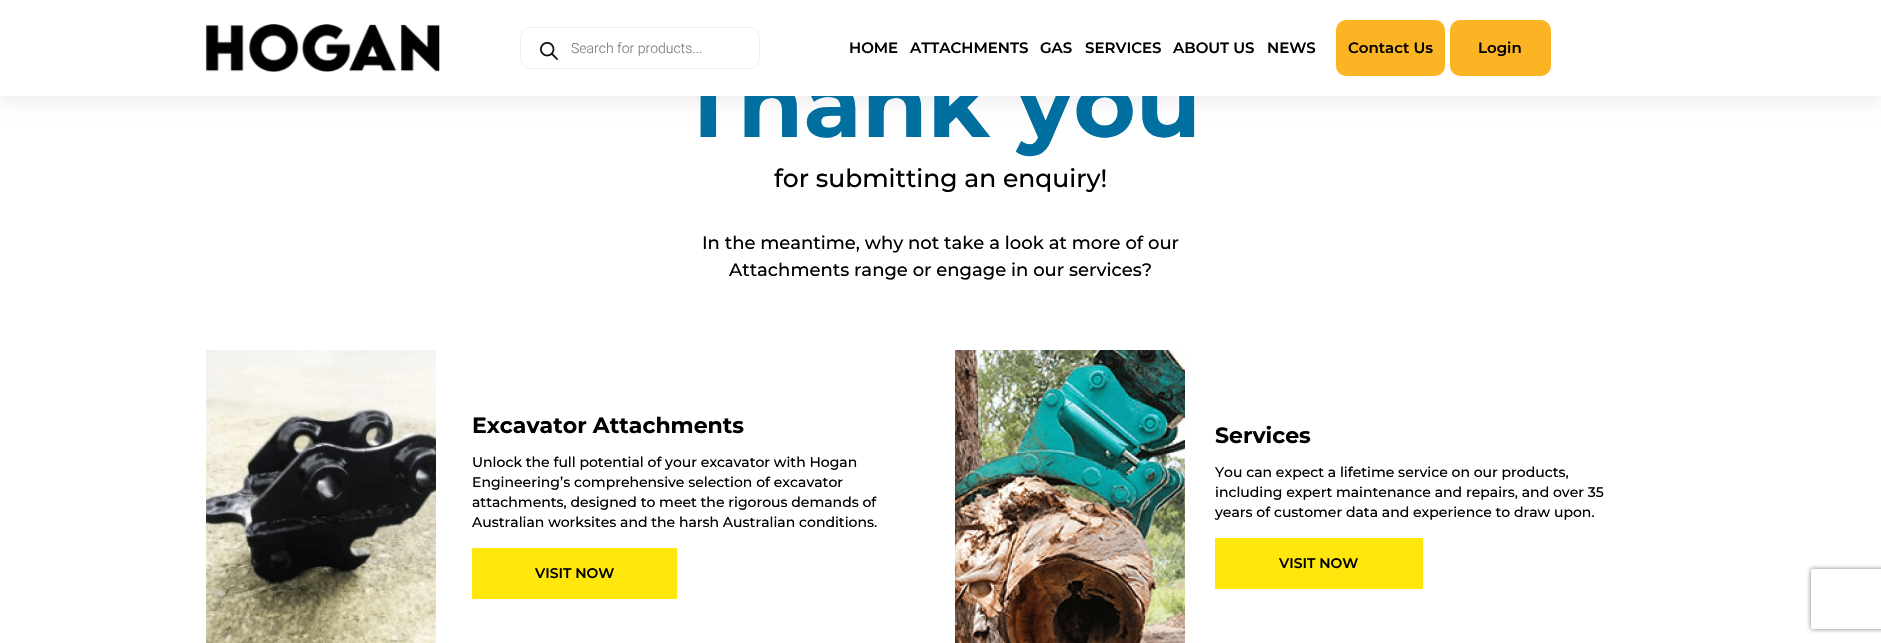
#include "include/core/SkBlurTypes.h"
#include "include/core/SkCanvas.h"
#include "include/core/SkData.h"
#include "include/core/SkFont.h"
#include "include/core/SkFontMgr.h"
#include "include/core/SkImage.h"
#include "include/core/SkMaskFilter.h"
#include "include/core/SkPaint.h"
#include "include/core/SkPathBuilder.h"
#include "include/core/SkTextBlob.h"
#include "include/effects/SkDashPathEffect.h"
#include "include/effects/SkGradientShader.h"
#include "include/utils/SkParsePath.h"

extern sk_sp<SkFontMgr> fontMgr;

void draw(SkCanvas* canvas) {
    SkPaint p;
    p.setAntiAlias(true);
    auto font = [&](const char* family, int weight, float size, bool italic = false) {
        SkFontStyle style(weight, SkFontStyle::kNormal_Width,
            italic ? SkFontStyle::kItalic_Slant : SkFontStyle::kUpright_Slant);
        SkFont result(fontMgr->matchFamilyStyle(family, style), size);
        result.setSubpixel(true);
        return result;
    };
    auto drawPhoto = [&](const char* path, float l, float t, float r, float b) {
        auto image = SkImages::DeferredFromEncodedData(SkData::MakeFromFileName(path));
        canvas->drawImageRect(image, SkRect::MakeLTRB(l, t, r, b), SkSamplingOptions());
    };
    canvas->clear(0xFFFFFFFF);
    p.setColor(0x12000000);
    p.setMaskFilter(SkMaskFilter::MakeBlur(kNormal_SkBlurStyle, 8));
    canvas->drawRect(SkRect::MakeLTRB(0, 6, 1881, 102), p);
    p.setMaskFilter(nullptr);
    auto font1 = font("Montserrat", 700, 95);
    p.setColor(0xFF006FA0);
    canvas->drawString("Thank you", 679, 137, font1, p);
    p.setColor(0xFFFFFFFF);
    canvas->drawRect(SkRect::MakeLTRB(0, 0, 1881, 96), p);
    drawPhoto("media/1.png", 205, 24, 440, 72);
    p.setStyle(SkPaint::kStroke_Style);
    p.setStrokeWidth(1);
    p.setColor(0xFFEEEEEE);
    canvas->drawRoundRect(SkRect::MakeLTRB(520.5f, 27.5f, 759.5f, 68.5f), 10.5f, 10.5f, p);
    p.setStyle(SkPaint::kFill_Style);
    p.setColor(0xFFFFFFFF);
    canvas->drawRoundRect(SkRect::MakeLTRB(521, 28, 759, 68), 10, 10, p);
    drawPhoto("media/2.png", 540, 42, 558, 60);
    auto font2 = font("Roboto", 300, 14);
    p.setColor(0xFF777777);
    canvas->drawString("Search for products...", 571, 53, font2, p);
    auto font3 = font("Montserrat", 600, 15);
    p.setColor(0xFF000000);
    {
        const struct { const char* s; float x, y; } items[] = {
            {"HOME", 849, 53},
            {"ATTACHMENTS", 910, 53},
            {"GAS", 1040, 53},
            {"SERVICES", 1085, 53},
            {"ABOUT US", 1173, 53},
            {"NEWS", 1267, 53},
        };
        for (auto [s, x, y] : items) {
            canvas->drawString(s, x, y, font3, p);
        }
    }
    p.setColor(0xFFFBB423);
    canvas->drawRoundRect(SkRect::MakeLTRB(1336, 20, 1445, 76), 10, 10, p);
    p.setColor(0xFF000000);
    canvas->drawString("Contact Us", 1348, 53, font3, p);
    p.setColor(0xFFFBB423);
    canvas->drawRoundRect(SkRect::MakeLTRB(1450, 20, 1551, 76), 10, 10, p);
    p.setColor(0xFF000000);
    canvas->drawString("Login", 1478, 53, font3, p);
    auto font4 = font("Montserrat", 500, 25);
    canvas->drawString("for submitting an enquiry!", 774, 187, font4, p);
    auto font5 = font("Montserrat", 500, 18);
    canvas->drawString("In the meantime, why not take a look at more of our", 702, 249, font5, p);
    canvas->drawString("Attachments range or engage in our services?", 729, 276, font5, p);
    drawPhoto("media/3.png", 206, 350, 436, 643);
    auto font6 = font("Montserrat", 700, 22);
    canvas->drawString("Excavator Attachments", 472, 433, font6, p);
    auto font7 = font("Montserrat", 500, 14);
    {
        const struct { const char* s; float x, y; } items[] = {
            {"Unlock the full potential of your excavator with Hogan", 472, 467},
            {"Engineering’s comprehensive selection of excavator", 472, 487},
            {"attachments, designed to meet the rigorous demands of", 472, 507},
            {"Australian worksites and the harsh Australian conditions.", 472, 527},
        };
        for (auto [s, x, y] : items) {
            canvas->drawString(s, x, y, font7, p);
        }
    }
    p.setColor(0xFFFFE70D);
    canvas->drawRect(SkRect::MakeLTRB(472, 548, 677, 599), p);
    auto font8 = font("Montserrat", 600, 14);
    p.setColor(0xFF000000);
    canvas->drawString("VISIT NOW", 535, 578, font8, p);
    drawPhoto("media/4.png", 955, 350, 1185, 643);
    canvas->drawString("Services", 1215, 443, font6, p);
    {
        const struct { const char* s; float x, y; } items[] = {
            {"You can expect a lifetime service on our products,", 1215, 477},
            {"including expert maintenance and repairs, and over 35", 1215, 497},
            {"years of customer data and experience to draw upon.", 1215, 517},
        };
        for (auto [s, x, y] : items) {
            canvas->drawString(s, x, y, font7, p);
        }
    }
    p.setColor(0xFFFFE70D);
    canvas->drawRect(SkRect::MakeLTRB(1215, 538, 1423, 589), p);
    p.setColor(0xFF000000);
    canvas->drawString("VISIT NOW", 1279, 568, font8, p);
    canvas->save();
    canvas->clipPath(SkPathBuilder(SkPathFillType::kEvenOdd).moveTo(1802, 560).lineTo(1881, 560).lineTo(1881, 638).lineTo(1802, 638).close().moveTo(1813, 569).lineTo(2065, 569).cubicTo(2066, 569, 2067, 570, 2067, 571).lineTo(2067, 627).cubicTo(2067, 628, 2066, 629, 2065, 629).lineTo(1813, 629).cubicTo(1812, 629, 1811, 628, 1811, 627).lineTo(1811, 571).cubicTo(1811, 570, 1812, 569, 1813, 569).close().detach(), true);
    p.setColor(0xFF808080);
    p.setMaskFilter(SkMaskFilter::MakeBlur(kNormal_SkBlurStyle, 2.5f));
    canvas->drawRoundRect(SkRect::MakeLTRB(1811, 569, 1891, 629), 2, 2, p);
    p.setMaskFilter(nullptr);
    canvas->restore();
}
